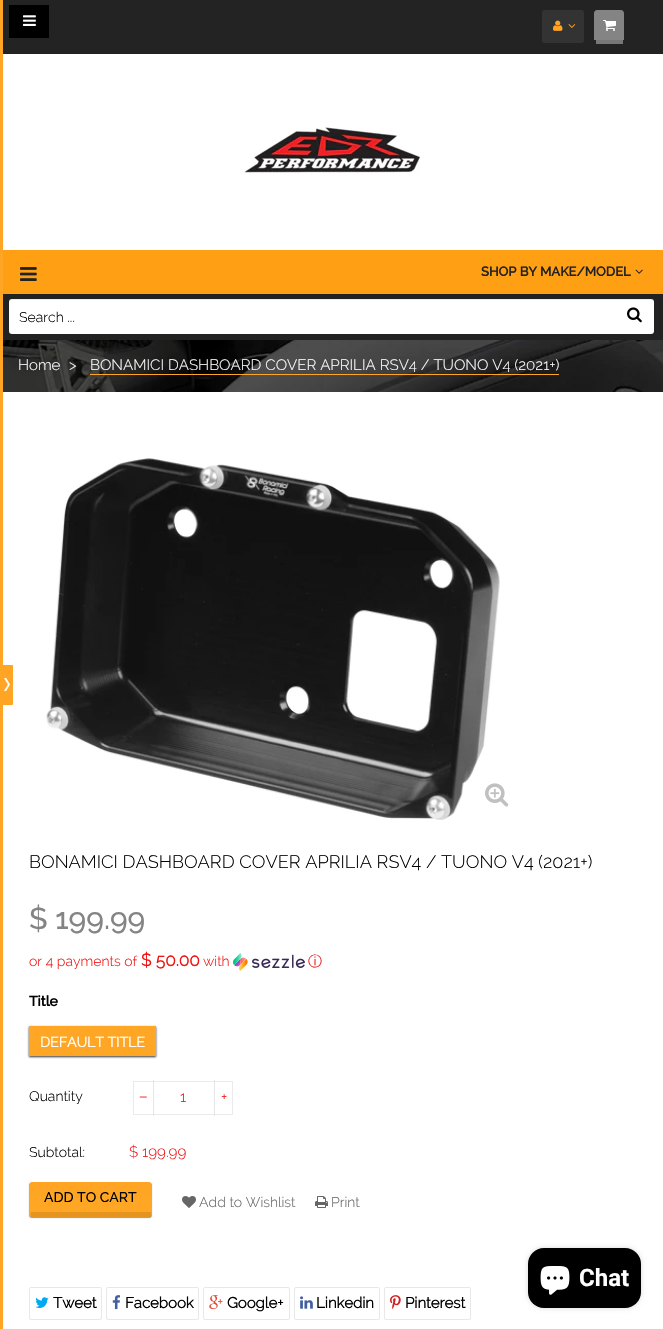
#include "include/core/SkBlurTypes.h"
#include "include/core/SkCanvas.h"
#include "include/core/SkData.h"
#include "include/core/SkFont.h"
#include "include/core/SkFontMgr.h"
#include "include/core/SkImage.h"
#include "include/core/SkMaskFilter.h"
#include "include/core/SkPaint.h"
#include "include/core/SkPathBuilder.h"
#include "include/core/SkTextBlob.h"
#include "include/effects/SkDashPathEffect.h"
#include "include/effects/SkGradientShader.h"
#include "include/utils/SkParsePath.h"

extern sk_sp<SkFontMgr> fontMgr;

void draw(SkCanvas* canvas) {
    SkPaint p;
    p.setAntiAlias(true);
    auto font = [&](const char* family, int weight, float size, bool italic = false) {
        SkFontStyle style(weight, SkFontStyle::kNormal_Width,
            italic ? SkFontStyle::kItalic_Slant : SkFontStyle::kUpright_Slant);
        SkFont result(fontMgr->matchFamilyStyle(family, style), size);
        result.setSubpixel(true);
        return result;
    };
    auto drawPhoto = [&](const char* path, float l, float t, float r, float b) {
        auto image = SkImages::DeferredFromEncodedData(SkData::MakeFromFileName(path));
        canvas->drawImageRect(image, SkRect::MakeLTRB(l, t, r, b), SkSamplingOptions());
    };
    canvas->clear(0xFFFFFFFF);
    p.setColor(0xFFFFA523);
    canvas->drawPath(SkPathBuilder().moveTo(0, 665).lineTo(12, 665).cubicTo(12.5f, 665, 13, 665.5f, 13, 666).lineTo(13, 704).cubicTo(13, 704.5f, 12.5f, 705, 12, 705).lineTo(0, 705).close().detach(), p);
    drawPhoto("media/1.png", 4, 678, 10, 691);
    canvas->drawRect(SkRect::MakeLTRB(0, 0, 3, 1329), p);
    p.setColor(0xFF232323);
    canvas->drawRect(SkRect::MakeLTRB(3, 0, 663, 54), p);
    p.setColor(0xFF333333);
    canvas->drawRoundRect(SkRect::MakeLTRB(542, 10, 584, 43), 3, 3, p);
    drawPhoto("media/2.png", 553, 20, 563, 31);
    drawPhoto("media/3.png", 568, 24, 576, 28);
    p.setColor(0xFF848484);
    canvas->drawPath(SkPathBuilder().moveTo(597, 10).lineTo(621, 10).cubicTo(622.5f, 10, 624, 11.5f, 624, 13).lineTo(624, 40).lineTo(594, 40).lineTo(594, 13).cubicTo(594, 11.5f, 595.5f, 10, 597, 10).close().detach(), p);
    p.setColor(0xFF777777);
    canvas->drawRect(SkRect::MakeLTRB(596, 40, 623, 44), p);
    drawPhoto("media/4.png", 603, 20, 616, 31);
    p.setColor(0xFF000000);
    canvas->drawRect(SkRect::MakeLTRB(9, 5, 49, 38), p);
    drawPhoto("media/5.png", 23, 15, 36, 26);
    drawPhoto("media/6.png", 244, 127, 420, 174);
    p.setColor(0xFFFF9F14);
    canvas->drawRect(SkRect::MakeLTRB(3, 250, 663, 294), p);
    drawPhoto("media/7.png", 20, 267, 37, 281);
    auto font1 = font("Raleway", 700, 13);
    p.setColor(0xFF222222);
    canvas->drawString("SHOP BY MAKE/MODEL", 481, 276, font1, p);
    drawPhoto("media/8.png", 635, 269, 643, 274);
    canvas->drawRect(SkRect::MakeLTRB(3, 294, 663, 340), p);
    p.setColor(0xFFFFFFFF);
    canvas->drawRoundRect(SkRect::MakeLTRB(9, 299, 654, 334), 3, 3, p);
    p.setColor(0x12000000);
    canvas->drawPath(SkPathBuilder().moveTo(12, 300).lineTo(651, 300).cubicTo(653, 300, 654, 301, 654, 303).lineTo(654, 302).cubicTo(654, 300, 653, 299, 651, 299).lineTo(12, 299).cubicTo(10, 299, 9, 300, 9, 302).lineTo(9, 303).cubicTo(9, 301, 10, 300, 12, 300).close().detach(), p);
    auto font2 = font("Raleway", 300, 14);
    p.setColor(0xFF000000);
    canvas->drawString("Search ...", 19, 322, font2, p);
    drawPhoto("media/9.png", 627, 307, 642, 323);
    drawPhoto("media/10.png", 3, 340, 663, 392);
    auto font3 = font("Raleway", 300, 15);
    p.setColor(0xFFFFFFFF);
    {
        const struct { const char* s; float x, y; } items[] = {
            {"Home", 18, 370},
            {">", 69, 370},
            {"BONAMICI DASHBOARD COVER APRILIA RSV4 / TUONO V4 (2021+)", 90, 370},
        };
        for (auto [s, x, y] : items) {
            canvas->drawString(s, x, y, font3, p);
        }
    }
    p.setColor(0xFFFFA523);
    canvas->drawRect(SkRect::MakeLTRB(90, 374, 559, 375), p);
    drawPhoto("media/11.png", 46, 458, 500, 820);
    drawPhoto("media/12.png", 485, 783, 509, 807);
    auto font4 = font("Raleway", 300, 18);
    p.setColor(0xFF000000);
    canvas->drawString("BONAMICI DASHBOARD COVER APRILIA RSV4 / TUONO V4 (2021+)", 29, 868, font4, p);
    auto font5 = font("Raleway", 500, 30);
    p.setColor(0xFF848484);
    canvas->drawString("$ 199.99", 29, 929, font5, p);
    p.setColor(0xFFEF1414);
    canvas->drawString("or 4 payments of", 29, 966, font2, p);
    auto font6 = font("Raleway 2", 700, 17);
    canvas->drawString("$ 50.00", 141, 966, font6, p);
    canvas->drawString("with", 203, 966, font2, p);
    drawPhoto("media/13.png", 233, 953, 305, 971);
    auto font7 = font("WenQuanYi Zen Hei", 500, 14);
    canvas->drawString("ⓘ", 308, 966, font7, p);
    auto font8 = font("Raleway", 700, 14);
    p.setColor(0xFF000000);
    canvas->drawString("Title", 29, 1006, font8, p);
    p.setColor(0xCC000000);
    p.setMaskFilter(SkMaskFilter::MakeBlur(kNormal_SkBlurStyle, 1));
    canvas->drawRect(SkRect::MakeLTRB(29, 1027, 156, 1057), p);
    p.setMaskFilter(nullptr);
    p.setColor(0xFFFFA625);
    canvas->drawRect(SkRect::MakeLTRB(29, 1026, 156, 1056), p);
    auto font9 = font("Raleway 2", 700, 14);
    p.setColor(0xFFFFFFFF);
    canvas->drawString("DEFAULT TITLE", 40, 1047, font9, p);
    p.setColor(0xFF000000);
    canvas->drawString("Quantity", 29, 1101, font2, p);
    p.setStyle(SkPaint::kStroke_Style);
    p.setStrokeWidth(1);
    p.setColor(0xFFEBEBEB);
    canvas->drawRect(SkRect::MakeLTRB(133.5f, 1081.5f, 232.5f, 1114.5f), p);
    p.setStyle(SkPaint::kFill_Style);
    p.setColor(0xFFE5E5E5);
    canvas->drawRect(SkRect::MakeLTRB(153, 1080, 154, 1116), p);
    auto font10 = font("Liberation Serif", 400, 15);
    p.setColor(0xFFEF1414);
    canvas->drawString("−", 139, 1102, font10, p);
    canvas->drawString("1", 180, 1102, font3, p);
    p.setColor(0xFFE5E5E5);
    canvas->drawRect(SkRect::MakeLTRB(214, 1080, 215, 1116), p);
    p.setColor(0xFFEF1414);
    canvas->drawString("+", 221, 1102, font3, p);
    p.setColor(0xFF000000);
    canvas->drawString("Subtotal:", 29, 1157, font2, p);
    p.setColor(0xFFEF1414);
    canvas->drawString("$ 199.99", 129, 1157, font3, p);
    p.setColor(0x66000101);
    p.setMaskFilter(SkMaskFilter::MakeBlur(kNormal_SkBlurStyle, 0.5f));
    canvas->drawRoundRect(SkRect::MakeLTRB(29, 1183, 152, 1218), 3, 3, p);
    p.setMaskFilter(nullptr);
    {
        const SkColor colors[] = {0xFFFFA523, 0xFFFFA625};
        const float stops[] = {0, 1};
        const SkPoint ends[] = {{91, 1182}, {91, 1212}};
        p.setShader(SkGradientShader::MakeLinear(ends, colors, stops, 2, SkTileMode::kClamp));
        p.setAlpha(255);
    }
    canvas->drawPath(SkPathBuilder().moveTo(32, 1182).lineTo(149, 1182).cubicTo(150.5f, 1182, 152, 1183.5f, 152, 1185).lineTo(152, 1212).lineTo(29, 1212).lineTo(29, 1185).cubicTo(29, 1183.5f, 30.5f, 1182, 32, 1182).close().detach(), p);
    {
        const SkColor colors[] = {0xFFFFA523, 0xFFFFA625};
        const float stops[] = {0, 1};
        const SkPoint ends[] = {{91, 1212}, {91, 1242}};
        p.setShader(SkGradientShader::MakeLinear(ends, colors, stops, 2, SkTileMode::kClamp));
        p.setAlpha(255);
    }
    canvas->drawPath(SkPathBuilder().moveTo(29, 1212).lineTo(152, 1212).lineTo(152, 1214).cubicTo(152, 1215.5f, 150.5f, 1217, 149, 1217).lineTo(32, 1217).cubicTo(30.5f, 1217, 29, 1215.5f, 29, 1214).close().detach(), p);
    p.setShader(nullptr);
    p.setColor(0x4DAA6D16);
    canvas->drawRect(SkRect::MakeLTRB(31, 1212, 151, 1217), p);
    auto font11 = font("Raleway", 500, 14);
    p.setColor(0xFF000000);
    canvas->drawString("ADD TO CART", 44, 1202, font11, p);
    drawPhoto("media/14.png", 182, 1196, 196, 1208);
    p.setColor(0xFF666666);
    canvas->drawString("Add to Wishlist", 199, 1207, font2, p);
    drawPhoto("media/15.png", 315, 1196, 328, 1208);
    canvas->drawString("Print", 331, 1207, font2, p);
    p.setStyle(SkPaint::kStroke_Style);
    p.setColor(0xFFE8E8E8);
    canvas->drawRoundRect(SkRect::MakeLTRB(29.5f, 1287.5f, 101.5f, 1319.5f), 1.5f, 1.5f, p);
    drawPhoto("media/16.png", 35, 1297, 49, 1308);
    auto font12 = font("Raleway 2", 700, 15);
    p.setStyle(SkPaint::kFill_Style);
    p.setColor(0xFF000000);
    canvas->drawString("Tweet", 53, 1308, font12, p);
    p.setStyle(SkPaint::kStroke_Style);
    p.setColor(0xFFE8E8E8);
    canvas->drawRoundRect(SkRect::MakeLTRB(106.5f, 1287.5f, 198.5f, 1319.5f), 1.5f, 1.5f, p);
    drawPhoto("media/17.png", 112, 1295, 121, 1310);
    p.setStyle(SkPaint::kFill_Style);
    p.setColor(0xFF000000);
    canvas->drawString("Facebook", 125, 1308, font12, p);
    p.setStyle(SkPaint::kStroke_Style);
    p.setColor(0xFFE8E8E8);
    canvas->drawRoundRect(SkRect::MakeLTRB(203.5f, 1287.5f, 289.5f, 1319.5f), 1.5f, 1.5f, p);
    drawPhoto("media/18.png", 209, 1295, 223, 1310);
    p.setStyle(SkPaint::kFill_Style);
    p.setColor(0xFF000000);
    canvas->drawString("Google+", 227, 1308, font12, p);
    p.setStyle(SkPaint::kStroke_Style);
    p.setColor(0xFFE8E8E8);
    canvas->drawRoundRect(SkRect::MakeLTRB(294.5f, 1287.5f, 379.5f, 1319.5f), 1.5f, 1.5f, p);
    drawPhoto("media/19.png", 300, 1296, 313, 1309);
    p.setStyle(SkPaint::kFill_Style);
    p.setColor(0xFF000000);
    canvas->drawString("Linkedin", 316, 1308, font12, p);
    p.setStyle(SkPaint::kStroke_Style);
    p.setColor(0xFFE8E8E8);
    canvas->drawRoundRect(SkRect::MakeLTRB(384.5f, 1287.5f, 470.5f, 1319.5f), 1.5f, 1.5f, p);
    drawPhoto("media/20.png", 390, 1295, 401, 1309);
    p.setStyle(SkPaint::kFill_Style);
    p.setColor(0xFF000000);
    canvas->drawString("Pinterest", 405, 1308, font12, p);
    p.setColor(0x26000000);
    p.setMaskFilter(SkMaskFilter::MakeBlur(kNormal_SkBlurStyle, 2.5f));
    canvas->drawRoundRect(SkRect::MakeLTRB(528, 1248, 641, 1308), 16, 16, p);
    p.setMaskFilter(nullptr);
    p.setColor(0xFF000000);
    canvas->drawRoundRect(SkRect::MakeLTRB(528, 1248, 641, 1308), 16, 16, p);
    drawPhoto("media/21.png", 540, 1266, 570, 1295);
    auto font13 = font("Roboto", 700, 24);
    p.setColor(0xFFFFFFFF);
    canvas->drawString("Chat", 579, 1286, font13, p);
}
